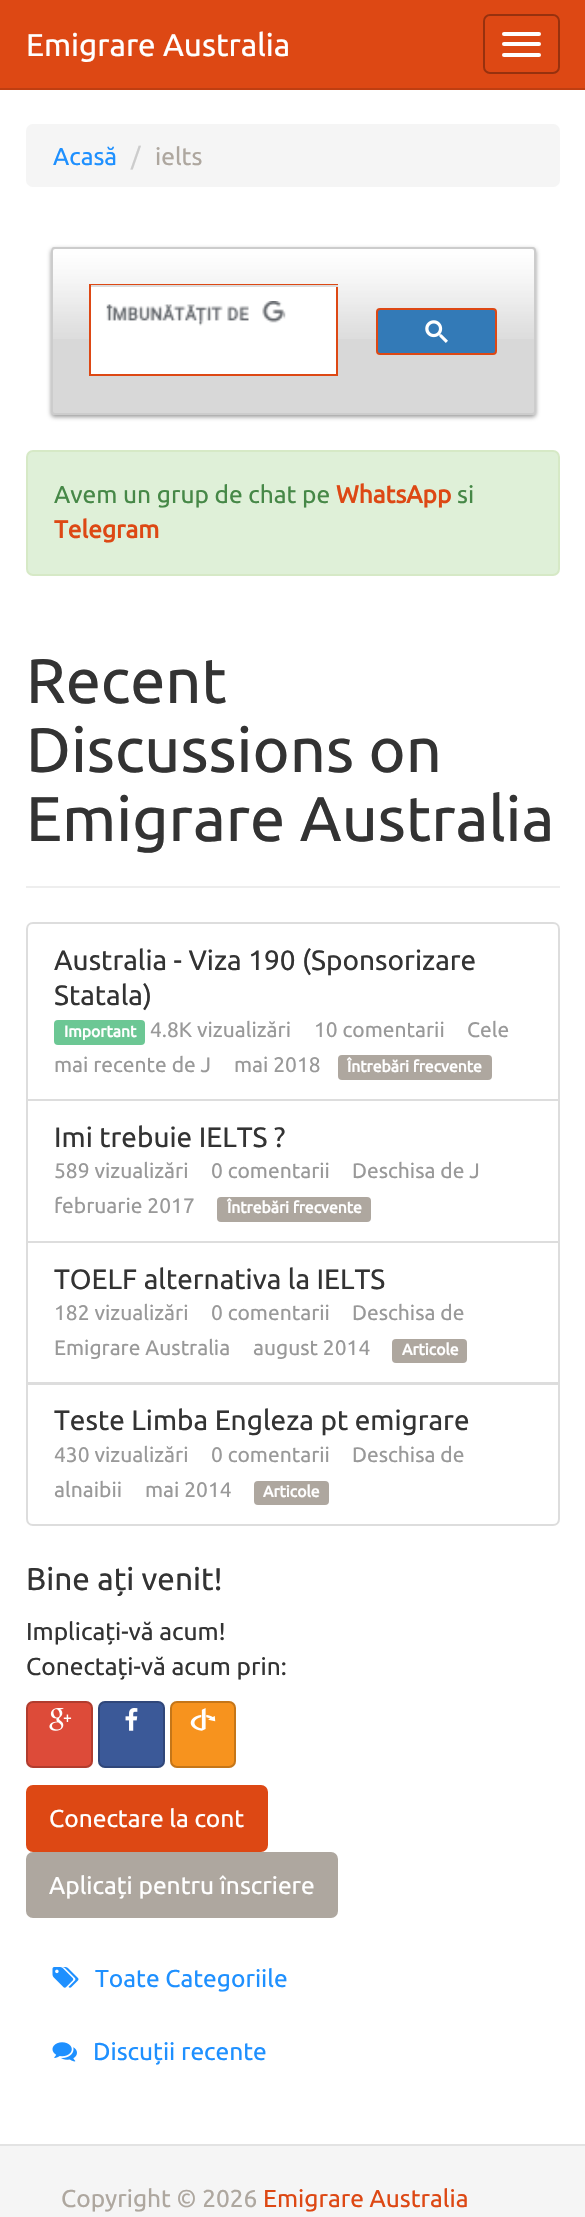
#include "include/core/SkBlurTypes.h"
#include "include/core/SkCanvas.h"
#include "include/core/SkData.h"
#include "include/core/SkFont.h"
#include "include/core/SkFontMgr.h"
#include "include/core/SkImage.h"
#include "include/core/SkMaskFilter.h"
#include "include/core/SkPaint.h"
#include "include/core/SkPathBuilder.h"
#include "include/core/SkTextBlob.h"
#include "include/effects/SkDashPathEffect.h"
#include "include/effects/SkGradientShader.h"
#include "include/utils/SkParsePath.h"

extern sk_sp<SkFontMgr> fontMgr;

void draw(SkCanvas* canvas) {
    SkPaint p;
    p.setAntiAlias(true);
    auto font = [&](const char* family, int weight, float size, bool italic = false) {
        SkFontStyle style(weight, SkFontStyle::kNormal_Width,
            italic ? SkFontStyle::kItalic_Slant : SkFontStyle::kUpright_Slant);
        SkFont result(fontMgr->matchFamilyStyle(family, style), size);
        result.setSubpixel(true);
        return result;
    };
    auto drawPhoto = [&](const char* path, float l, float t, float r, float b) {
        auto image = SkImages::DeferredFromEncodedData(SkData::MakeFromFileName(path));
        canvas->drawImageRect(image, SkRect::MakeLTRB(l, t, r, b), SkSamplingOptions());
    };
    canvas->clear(0xFFFFFFFF);
    p.setColor(0xFFDD4814);
    canvas->drawRect(SkRect::MakeLTRB(0, 0, 585, 88), p);
    p.setColor(0xFFBF3E11);
    canvas->drawRect(SkRect::MakeLTRB(0, 88, 585, 90), p);
    auto font1 = font("Ubuntu", 400, 31.5f);
    p.setColor(0xFFFFFFFF);
    canvas->drawString("Emigrare Australia", 26, 56, font1, p);
    p.setStyle(SkPaint::kStroke_Style);
    p.setStrokeWidth(2);
    p.setColor(0xFF97310E);
    canvas->drawRoundRect(SkRect::MakeLTRB(484, 15, 559, 73), 6, 6, p);
    p.setStyle(SkPaint::kFill_Style);
    p.setColor(0xFFFFFFFF);
    canvas->drawRoundRect(SkRect::MakeLTRB(502, 32, 541, 36), 2, 2, p);
    canvas->drawRoundRect(SkRect::MakeLTRB(502, 42, 541, 46), 2, 2, p);
    canvas->drawRoundRect(SkRect::MakeLTRB(502, 53, 541, 57), 2, 2, p);
    p.setColor(0xFFF5F5F5);
    canvas->drawRoundRect(SkRect::MakeLTRB(26, 124, 560, 187), 7, 7, p);
    auto font2 = font("Ubuntu", 400, 24.5f);
    p.setColor(0xFF1E90FF);
    canvas->drawString("Acasă", 53, 165, font2, p);
    p.setColor(0xFFCCCCCC);
    canvas->drawString("/", 131, 165, font2, p);
    p.setColor(0xFFAEA79F);
    canvas->drawString("ielts", 155, 165, font2, p);
    p.setColor(0xFF999999);
    p.setMaskFilter(SkMaskFilter::MakeBlur(kNormal_SkBlurStyle, 2));
    canvas->drawRoundRect(SkRect::MakeLTRB(51, 249, 536, 417), 4, 4, p);
    p.setMaskFilter(nullptr);
    p.setColor(0xFFD8D8D8);
    canvas->drawRoundRect(SkRect::MakeLTRB(51, 247, 536, 415), 4, 4, p);
    drawPhoto("media/1.png", 51, 248, 536, 339);
    p.setStyle(SkPaint::kStroke_Style);
    p.setColor(0xFFCCCCCC);
    canvas->drawRoundRect(SkRect::MakeLTRB(52, 248, 535, 414), 3, 3, p);
    p.setStyle(SkPaint::kFill_Style);
    p.setColor(0xFFFFFFFF);
    canvas->drawRect(SkRect::MakeLTRB(91, 340, 336, 374), p);
    p.setStyle(SkPaint::kStroke_Style);
    p.setColor(0xFFDD4814);
    canvas->drawRect(SkRect::MakeLTRB(90, 285, 337, 375), p);
    p.setStyle(SkPaint::kFill_Style);
    p.setColor(0xFFFFFFFF);
    canvas->drawRect(SkRect::MakeLTRB(91, 287, 336, 340), p);
    p.setColor(0xFFDDDDDD);
    canvas->drawRect(SkRect::MakeLTRB(91, 285, 338, 287), p);
    drawPhoto("media/2.png", 106, 301, 286, 326);
    p.setColor(0xFF337AB7);
    canvas->drawRoundRect(SkRect::MakeLTRB(377, 309, 496, 354), 3, 3, p);
    p.setStyle(SkPaint::kStroke_Style);
    p.setColor(0xFFDD4814);
    canvas->drawRoundRect(SkRect::MakeLTRB(377, 309, 496, 354), 3, 3, p);
    drawPhoto("media/3.png", 425, 320, 448, 343);
    p.setStyle(SkPaint::kFill_Style);
    p.setColor(0xFFDFF0D8);
    canvas->drawRoundRect(SkRect::MakeLTRB(27, 451, 559, 575), 6, 6, p);
    p.setStyle(SkPaint::kStroke_Style);
    p.setColor(0xFFD6E9C6);
    canvas->drawRoundRect(SkRect::MakeLTRB(27, 451, 559, 575), 6, 6, p);
    p.setStyle(SkPaint::kFill_Style);
    p.setColor(0xFF468847);
    canvas->drawString("Avem un grup de chat pe", 54, 503, font2, p);
    auto font3 = font("Ubuntu", 700, 24.5f);
    p.setColor(0xFFDD4814);
    canvas->drawString("WhatsApp", 336, 503, font3, p);
    p.setColor(0xFF468847);
    canvas->drawString("si", 457, 503, font2, p);
    p.setColor(0xFFDD4814);
    canvas->drawString("Telegram", 54, 538, font3, p);
    p.setColor(0xFFEEEEEE);
    canvas->drawRect(SkRect::MakeLTRB(26, 886, 560, 888), p);
    auto font4 = font("Ubuntu", 400, 63);
    p.setColor(0xFF333333);
    {
        const struct { const char* s; float x, y; } items[] = {
            {"Recent", 26, 703},
            {"Discussions on", 26, 772},
            {"Emigrare Australia", 26, 841},
        };
        for (auto [s, x, y] : items) {
            canvas->drawString(s, x, y, font4, p);
        }
    }
    p.setStyle(SkPaint::kStroke_Style);
    p.setColor(0xFFDDDDDD);
    canvas->drawPath(SkPathBuilder().moveTo(33, 923).lineTo(553, 923).cubicTo(556.5f, 923, 559, 925.5f, 559, 929).lineTo(559, 1100).lineTo(27, 1100).lineTo(27, 929).cubicTo(27, 925.5f, 29.5f, 923, 33, 923).close().detach(), p);
    auto font5 = font("Ubuntu", 400, 28);
    p.setStyle(SkPaint::kFill_Style);
    p.setColor(0xFF333333);
    canvas->drawString("Australia - Viza 190 (Sponsorizare", 54, 970, font5, p);
    canvas->drawString("Statala)", 54, 1005, font5, p);
    p.setColor(0xFF6CC794);
    canvas->drawRoundRect(SkRect::MakeLTRB(54, 1020, 145, 1045), 4, 4, p);
    auto font6 = font("Ubuntu", 700, 15.75f);
    p.setColor(0xFFFFFFFF);
    canvas->drawString("Important", 64, 1037, font6, p);
    auto font7 = font("Ubuntu", 400, 21);
    p.setColor(0xFF999999);
    {
        const struct { const char* s; float x, y; } items[] = {
            {"4.8K vizualizări", 150, 1037},
            {"10 comentarii", 314, 1037},
            {"Cele", 467, 1037},
            {"mai recente de J", 54, 1072},
            {"mai 2018", 234, 1072},
        };
        for (auto [s, x, y] : items) {
            canvas->drawString(s, x, y, font7, p);
        }
    }
    p.setColor(0xFFAEA79F);
    canvas->drawRoundRect(SkRect::MakeLTRB(338, 1055, 492, 1080), 4, 4, p);
    p.setColor(0xFFFFFFFF);
    canvas->drawString("Întrebări frecvente", 347, 1072, font6, p);
    p.setStyle(SkPaint::kStroke_Style);
    p.setColor(0xFFDDDDDD);
    canvas->drawRect(SkRect::MakeLTRB(27, 1100, 559, 1242), p);
    p.setStyle(SkPaint::kFill_Style);
    p.setColor(0xFF333333);
    canvas->drawString("Imi trebuie IELTS ?", 54, 1147, font5, p);
    p.setColor(0xFF999999);
    {
        const struct { const char* s; float x, y; } items[] = {
            {"589 vizualizări", 54, 1178},
            {"0 comentarii", 211, 1178},
            {"Deschisa de J", 352, 1178},
            {"februarie 2017", 54, 1213},
        };
        for (auto [s, x, y] : items) {
            canvas->drawString(s, x, y, font7, p);
        }
    }
    p.setColor(0xFFAEA79F);
    canvas->drawRoundRect(SkRect::MakeLTRB(217, 1197, 371, 1222), 4, 4, p);
    p.setColor(0xFFFFFFFF);
    canvas->drawString("Întrebări frecvente", 227, 1213, font6, p);
    p.setStyle(SkPaint::kStroke_Style);
    p.setColor(0xFFDDDDDD);
    canvas->drawRect(SkRect::MakeLTRB(27, 1242, 559, 1383), p);
    p.setStyle(SkPaint::kFill_Style);
    p.setColor(0xFF333333);
    canvas->drawString("TOELF alternativa la IELTS", 54, 1289, font5, p);
    p.setColor(0xFF999999);
    {
        const struct { const char* s; float x, y; } items[] = {
            {"182 vizualizări", 54, 1320},
            {"0 comentarii", 211, 1320},
            {"Deschisa de", 352, 1320},
            {"Emigrare Australia", 54, 1355},
            {"august 2014", 253, 1355},
        };
        for (auto [s, x, y] : items) {
            canvas->drawString(s, x, y, font7, p);
        }
    }
    p.setColor(0xFFAEA79F);
    canvas->drawRoundRect(SkRect::MakeLTRB(392, 1339, 467, 1363), 4, 4, p);
    p.setColor(0xFFFFFFFF);
    canvas->drawString("Articole", 402, 1355, font6, p);
    canvas->drawPath(SkPathBuilder().moveTo(27, 1384).lineTo(559, 1384).lineTo(559, 1519).cubicTo(559, 1522.5f, 556.5f, 1525, 553, 1525).lineTo(33, 1525).cubicTo(29.5f, 1525, 27, 1522.5f, 27, 1519).close().detach(), p);
    p.setStyle(SkPaint::kStroke_Style);
    p.setColor(0xFFDDDDDD);
    canvas->drawPath(SkPathBuilder().moveTo(27, 1384).lineTo(559, 1384).lineTo(559, 1519).cubicTo(559, 1522.5f, 556.5f, 1525, 553, 1525).lineTo(33, 1525).cubicTo(29.5f, 1525, 27, 1522.5f, 27, 1519).close().detach(), p);
    p.setStyle(SkPaint::kFill_Style);
    p.setColor(0xFF333333);
    canvas->drawString("Teste Limba Engleza pt emigrare", 54, 1430, font5, p);
    p.setColor(0xFF999999);
    {
        const struct { const char* s; float x, y; } items[] = {
            {"430 vizualizări", 54, 1462},
            {"0 comentarii", 211, 1462},
            {"Deschisa de", 352, 1462},
            {"alnaibii", 54, 1497},
            {"mai 2014", 145, 1497},
        };
        for (auto [s, x, y] : items) {
            canvas->drawString(s, x, y, font7, p);
        }
    }
    p.setColor(0xFFAEA79F);
    canvas->drawRoundRect(SkRect::MakeLTRB(254, 1481, 329, 1505), 4, 4, p);
    p.setColor(0xFFFFFFFF);
    canvas->drawString("Articole", 263, 1497, font6, p);
    p.setColor(0xFF333333);
    canvas->drawString("Bine ați venit!", 26, 1590, font1, p);
    canvas->drawString("Implicați-vă acum!", 26, 1640, font2, p);
    canvas->drawString("Conectați-vă acum prin:", 26, 1675, font2, p);
    p.setColor(0xFFDD4B39);
    canvas->drawRoundRect(SkRect::MakeLTRB(26, 1701, 93, 1768), 7, 7, p);
    p.setStyle(SkPaint::kStroke_Style);
    p.setColor(0x33000000);
    canvas->drawRoundRect(SkRect::MakeLTRB(27, 1702, 92, 1767), 6, 6, p);
    drawPhoto("media/4.png", 49, 1708, 72, 1731);
    p.setStyle(SkPaint::kFill_Style);
    p.setColor(0xFF3B5998);
    canvas->drawRoundRect(SkRect::MakeLTRB(98, 1701, 165, 1768), 7, 7, p);
    p.setStyle(SkPaint::kStroke_Style);
    p.setColor(0x33000000);
    canvas->drawRoundRect(SkRect::MakeLTRB(99, 1702, 164, 1767), 6, 6, p);
    drawPhoto("media/5.png", 125, 1708, 138, 1731);
    p.setStyle(SkPaint::kFill_Style);
    p.setColor(0xFFF7931E);
    canvas->drawRoundRect(SkRect::MakeLTRB(170, 1701, 236, 1768), 7, 7, p);
    p.setStyle(SkPaint::kStroke_Style);
    p.setColor(0x33000000);
    canvas->drawRoundRect(SkRect::MakeLTRB(171, 1702, 235, 1767), 6, 6, p);
    drawPhoto("media/6.png", 190, 1708, 216, 1731);
    p.setStyle(SkPaint::kFill_Style);
    p.setColor(0xFFDD4814);
    canvas->drawRoundRect(SkRect::MakeLTRB(27, 1786, 267, 1851), 6, 6, p);
    p.setStyle(SkPaint::kStroke_Style);
    canvas->drawRoundRect(SkRect::MakeLTRB(27, 1786, 267, 1851), 6, 6, p);
    p.setStyle(SkPaint::kFill_Style);
    p.setColor(0xFFFFFFFF);
    canvas->drawString("Conectare la cont", 49, 1827, font2, p);
    p.setColor(0xFFAEA79F);
    canvas->drawRoundRect(SkRect::MakeLTRB(27, 1853, 337, 1917), 6, 6, p);
    p.setStyle(SkPaint::kStroke_Style);
    canvas->drawRoundRect(SkRect::MakeLTRB(27, 1853, 337, 1917), 6, 6, p);
    p.setStyle(SkPaint::kFill_Style);
    p.setColor(0xFFFFFFFF);
    canvas->drawString("Aplicați pentru înscriere", 49, 1894, font2, p);
    drawPhoto("media/7.png", 52, 1967, 79, 1988);
    p.setColor(0xFF1E90FF);
    canvas->drawString("Toate Categoriile", 95, 1987, font2, p);
    drawPhoto("media/8.png", 52, 2042, 77, 2062);
    canvas->drawString("Discuții recente", 93, 2060, font2, p);
    p.setColor(0xFFF5F5F5);
    canvas->drawRect(SkRect::MakeLTRB(0, 2146, 585, 2217), p);
    p.setColor(0xFFE3E3E3);
    canvas->drawRect(SkRect::MakeLTRB(0, 2144, 585, 2146), p);
    p.setColor(0xFFAEA79F);
    canvas->drawString("Copyright © 2026", 61, 2207, font2, p);
    p.setColor(0xFFDD4814);
    canvas->drawString("Emigrare Australia", 263, 2207, font2, p);
}
